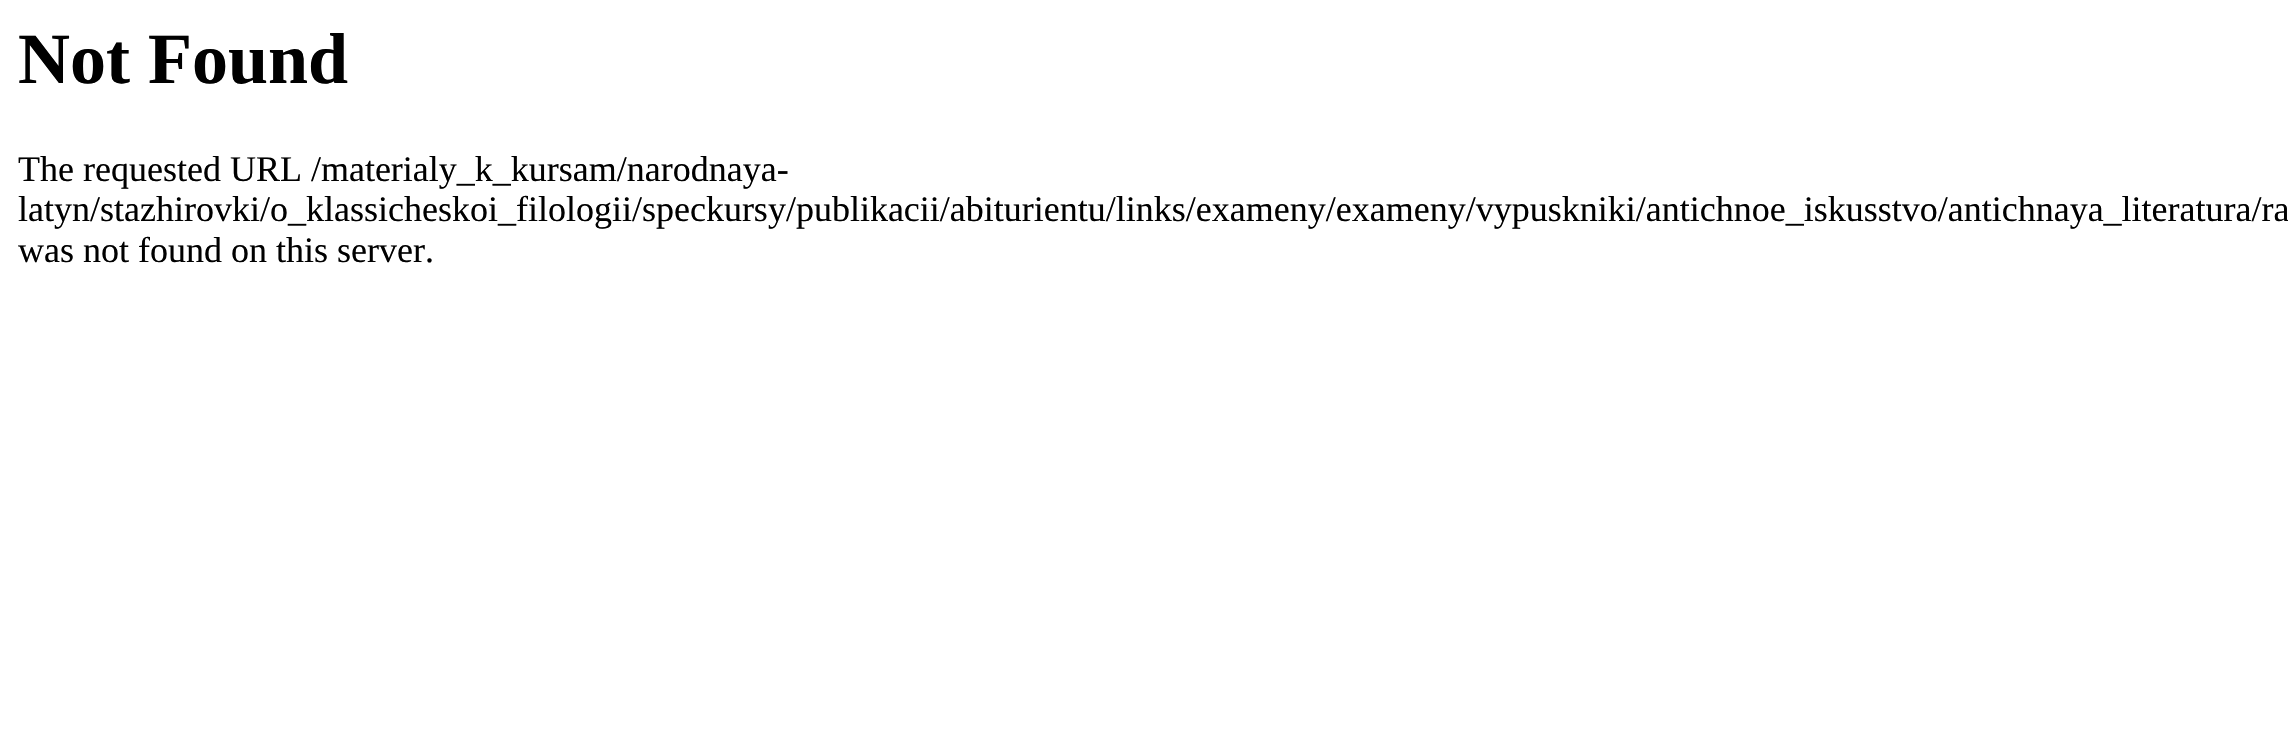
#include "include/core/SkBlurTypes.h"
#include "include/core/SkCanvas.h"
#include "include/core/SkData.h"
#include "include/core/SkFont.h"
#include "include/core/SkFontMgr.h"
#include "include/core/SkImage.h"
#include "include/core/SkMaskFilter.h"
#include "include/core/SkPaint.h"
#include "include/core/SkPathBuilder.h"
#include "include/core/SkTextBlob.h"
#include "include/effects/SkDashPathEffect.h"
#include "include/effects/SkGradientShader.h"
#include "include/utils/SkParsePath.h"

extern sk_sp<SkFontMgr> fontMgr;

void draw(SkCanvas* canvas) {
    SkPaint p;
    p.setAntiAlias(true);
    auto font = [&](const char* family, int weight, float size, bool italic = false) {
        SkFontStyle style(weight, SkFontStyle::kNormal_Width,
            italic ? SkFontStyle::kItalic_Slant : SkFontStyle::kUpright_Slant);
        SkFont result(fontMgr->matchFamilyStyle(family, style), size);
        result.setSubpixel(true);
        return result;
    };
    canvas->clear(0xFFFFFFFF);
    auto font1 = font("Liberation Serif", 700, 72);
    p.setColor(0xFF000000);
    canvas->drawString("Not Found", 18, 83, font1, p);
    auto font2 = font("Liberation Serif", 400, 36);
    {
        const struct { const char* s; float x, y; } items[] = {
            {"The requested URL /materialy_k_kursam/narodnaya-", 18, 181},
            {"latyn/stazhirovki/o_klassicheskoi_filologii/speckursy/publikacii/abiturientu/links/exameny/exameny/vypuskniki/antichnoe_iskusstvo/antichnaya_literatura/ra", 18, 221},
            {"was not found on this server.", 18, 262},
        };
        for (auto [s, x, y] : items) {
            canvas->drawString(s, x, y, font2, p);
        }
    }
}
